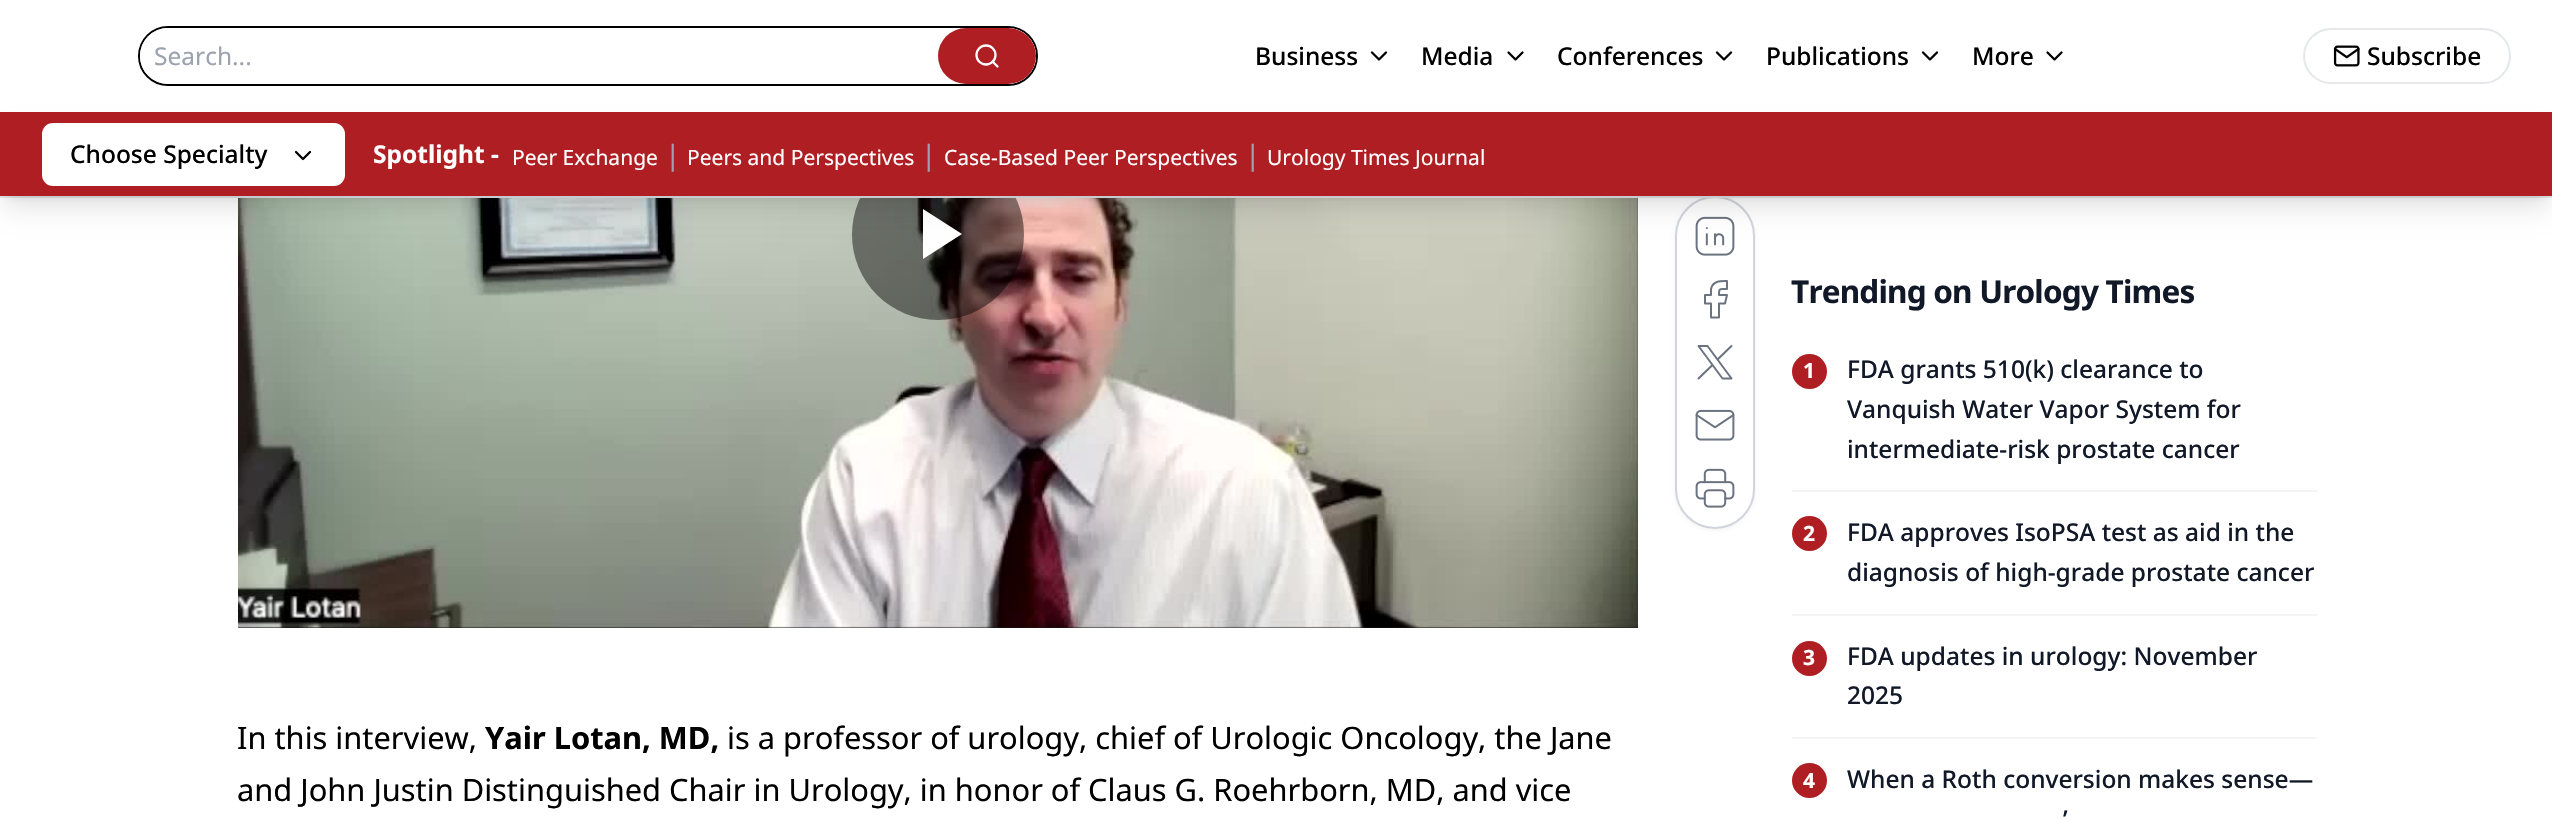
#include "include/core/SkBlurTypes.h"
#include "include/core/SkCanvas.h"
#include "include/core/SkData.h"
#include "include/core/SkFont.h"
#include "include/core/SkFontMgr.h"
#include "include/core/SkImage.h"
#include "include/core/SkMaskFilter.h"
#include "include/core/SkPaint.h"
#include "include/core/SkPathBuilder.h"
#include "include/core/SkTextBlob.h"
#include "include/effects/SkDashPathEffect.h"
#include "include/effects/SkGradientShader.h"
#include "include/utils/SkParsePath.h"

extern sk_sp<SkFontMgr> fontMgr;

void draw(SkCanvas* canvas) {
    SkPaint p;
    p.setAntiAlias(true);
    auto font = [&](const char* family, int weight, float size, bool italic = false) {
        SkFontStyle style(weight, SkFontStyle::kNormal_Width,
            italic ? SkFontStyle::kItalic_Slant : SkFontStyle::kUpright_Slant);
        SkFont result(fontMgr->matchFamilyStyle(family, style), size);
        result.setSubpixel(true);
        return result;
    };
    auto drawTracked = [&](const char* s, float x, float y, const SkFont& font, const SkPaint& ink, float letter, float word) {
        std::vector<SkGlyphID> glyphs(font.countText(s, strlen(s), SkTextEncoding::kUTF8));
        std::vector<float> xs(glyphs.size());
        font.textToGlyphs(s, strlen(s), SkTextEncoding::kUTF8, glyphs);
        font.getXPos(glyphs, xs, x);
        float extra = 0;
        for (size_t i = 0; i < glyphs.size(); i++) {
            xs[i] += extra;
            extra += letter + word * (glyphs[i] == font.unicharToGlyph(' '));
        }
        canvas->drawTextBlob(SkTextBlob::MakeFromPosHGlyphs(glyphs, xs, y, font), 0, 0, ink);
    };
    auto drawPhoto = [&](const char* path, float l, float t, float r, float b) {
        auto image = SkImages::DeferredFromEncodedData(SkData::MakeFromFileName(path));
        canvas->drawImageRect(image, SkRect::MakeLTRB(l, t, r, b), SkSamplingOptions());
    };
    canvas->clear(0xFFFFFFFF);
    p.setColor(0xFF151B17);
    canvas->drawRect(SkRect::MakeLTRB(238, 627, 1638, 628), p);
    drawPhoto("media/2.png", 238, 198, 1638, 628);
    p.setColor(0x73000000);
    canvas->drawRoundRect(SkRect::MakeLTRB(852, 149, 1024, 320), 85.5f, 85.5f, p);
    p.setColor(0x0D000000);
    p.setMaskFilter(SkMaskFilter::MakeBlur(kNormal_SkBlurStyle, 2));
    canvas->drawRoundRect(SkRect::MakeLTRB(1675, 198, 1755, 530), 40, 40, p);
    p.setMaskFilter(nullptr);
    p.setColor(0xFFFFFFFF);
    canvas->drawRoundRect(SkRect::MakeLTRB(1676, 197, 1754, 528), 39, 39, p);
    p.setStyle(SkPaint::kStroke_Style);
    p.setStrokeWidth(2);
    p.setColor(0xFFD1D5DB);
    canvas->drawRoundRect(SkRect::MakeLTRB(1676, 197, 1754, 528), 39, 39, p);
    p.setStyle(SkPaint::kFill_Style);
    p.setColor(0xFFE5E7EB);
    canvas->drawRect(SkRect::MakeLTRB(0, 196, 2552, 198), p);
    p.setStyle(SkPaint::kStroke_Style);
    p.setColor(0xFF000000);
    canvas->drawRoundRect(SkRect::MakeLTRB(139, 27, 1037, 85), 29, 29, p);
    p.setStyle(SkPaint::kFill_Style);
    p.setColor(0xFFFFFFFF);
    canvas->drawRoundRect(SkRect::MakeLTRB(140, 28, 1036, 84), 28, 28, p);
    auto font1 = font("Noto Sans", 400, 24.5f);
    p.setColor(0xFF9CA3AF);
    canvas->drawString("Search...", 154, 65, font1, p);
    p.setColor(0xFFAE1E22);
    canvas->drawRoundRect(SkRect::MakeLTRB(938, 28, 1036, 84), 28, 28, p);
    p.setStyle(SkPaint::kStroke_Style);
    p.setStrokeWidth(2.3f);
    p.setColor(0xFFFFFFFF);
    canvas->drawCircle(986, 55, 9.5f, p);
    p.setStrokeCap(SkPaint::kRound_Cap);
    p.setStrokeJoin(SkPaint::kRound_Join);
    canvas->drawPath(SkPathBuilder().moveTo(997.5f, 66.5f).lineTo(992.5f, 61.5f).detach(), p);
    auto font2 = font("Noto Sans", 500, 24.5f);
    p.setStyle(SkPaint::kFill_Style);
    p.setColor(0xFF000000);
    canvas->drawString("Business", 1255, 65, font2, p);
    p.setStyle(SkPaint::kStroke_Style);
    canvas->drawPath(SkPathBuilder().moveTo(1372, 52.5f).lineTo(1379, 59.5f).lineTo(1386, 52.5f).detach(), p);
    p.setStyle(SkPaint::kFill_Style);
    canvas->drawString("Media", 1421, 65, font2, p);
    p.setStyle(SkPaint::kStroke_Style);
    canvas->drawPath(SkPathBuilder().moveTo(1508.5f, 52.5f).lineTo(1515.5f, 59.5f).lineTo(1522.5f, 52.5f).detach(), p);
    p.setStyle(SkPaint::kFill_Style);
    canvas->drawString("Conferences", 1557, 65, font2, p);
    p.setStyle(SkPaint::kStroke_Style);
    canvas->drawPath(SkPathBuilder().moveTo(1717, 52.5f).lineTo(1724, 59.5f).lineTo(1731, 52.5f).detach(), p);
    p.setStyle(SkPaint::kFill_Style);
    canvas->drawString("Publications", 1766, 65, font2, p);
    p.setStyle(SkPaint::kStroke_Style);
    canvas->drawPath(SkPathBuilder().moveTo(1923, 52.5f).lineTo(1930, 59.5f).lineTo(1937, 52.5f).detach(), p);
    p.setStyle(SkPaint::kFill_Style);
    canvas->drawString("More", 1972, 65, font2, p);
    p.setStyle(SkPaint::kStroke_Style);
    canvas->drawPath(SkPathBuilder().moveTo(2047.5f, 52.5f).lineTo(2054.5f, 59.5f).lineTo(2061.5f, 52.5f).detach(), p);
    p.setStrokeWidth(2);
    p.setStrokeCap(SkPaint::kButt_Cap);
    p.setStrokeJoin(SkPaint::kMiter_Join);
    p.setColor(0xFFE5E7EB);
    canvas->drawRoundRect(SkRect::MakeLTRB(2304, 29, 2510, 83), 27, 27, p);
    drawPhoto("media/1.png", 2333, 45, 2360, 67);
    p.setStyle(SkPaint::kFill_Style);
    p.setColor(0xFF000000);
    canvas->drawString("Subscribe", 2367, 65, font2, p);
    p.setColor(0xFFFFFFFF);
    canvas->drawPath(SkPathBuilder().moveTo(923, 209).lineTo(923, 259).lineTo(962, 234).close().detach(), p);
    p.setColor(0x1A000000);
    p.setMaskFilter(SkMaskFilter::MakeBlur(kNormal_SkBlurStyle, 5));
    canvas->drawRect(SkRect::MakeLTRB(7, 126, 2546, 196), p);
    p.setMaskFilter(nullptr);
    drawPhoto("media/3.png", 1695, 216, 1735, 256);
    p.setMaskFilter(SkMaskFilter::MakeBlur(kNormal_SkBlurStyle, 13));
    canvas->drawRect(SkRect::MakeLTRB(5, 135, 2548, 208), p);
    p.setMaskFilter(nullptr);
    p.setColor(0xFFAE1E22);
    canvas->drawRect(SkRect::MakeLTRB(0, 112, 2552, 196), p);
    p.setColor(0xFFFFFFFF);
    canvas->drawRoundRect(SkRect::MakeLTRB(42, 123, 345, 186), 11, 11, p);
    p.setColor(0xFF000000);
    canvas->drawString("Choose Specialty", 70, 163, font2, p);
    p.setStyle(SkPaint::kStroke_Style);
    p.setStrokeWidth(2.3f);
    p.setStrokeCap(SkPaint::kRound_Cap);
    p.setStrokeJoin(SkPaint::kRound_Join);
    canvas->drawPath(SkPathBuilder().moveTo(296, 152).lineTo(303, 159).lineTo(310, 152).detach(), p);
    auto font3 = font("Noto Sans", 700, 24.5f);
    p.setStyle(SkPaint::kFill_Style);
    p.setColor(0xFFFFFFFF);
    canvas->drawString("Spotlight -", 373, 163, font3, p);
    auto font4 = font("Noto Sans", 400, 21);
    canvas->drawString("Peer Exchange", 512, 165, font4, p);
    auto font5 = font("Noto Sans", 400, 28);
    p.setColor(0xFF9CA3AF);
    canvas->drawString("|", 665, 165, font5, p);
    p.setColor(0xFFFFFFFF);
    canvas->drawString("Peers and Perspectives", 687, 165, font4, p);
    p.setColor(0xFF9CA3AF);
    canvas->drawString("|", 921, 165, font5, p);
    p.setColor(0xFFFFFFFF);
    canvas->drawString("Case-Based Peer Perspectives", 944, 165, font4, p);
    p.setColor(0xFF9CA3AF);
    canvas->drawString("|", 1245, 165, font5, p);
    p.setColor(0xFFFFFFFF);
    canvas->drawString("Urology Times Journal", 1267, 165, font4, p);
    auto font6 = font("Noto Sans", 400, 30.8f);
    p.setColor(0xFF000000);
    canvas->drawString("In this interview,", 237, 749, font6, p);
    auto font7 = font("Noto Sans", 700, 30.8f);
    canvas->drawString("Yair Lotan, MD,", 485, 749, font7, p);
    canvas->drawString("is a professor of urology, chief of Urologic Oncology, the Jane", 727, 749, font6, p);
    canvas->drawString("and John Justin Distinguished Chair in Urology, in honor of Claus G. Roehrborn, MD, and vice", 237, 801, font6, p);
    p.setStyle(SkPaint::kStroke_Style);
    p.setStrokeWidth(2);
    p.setColor(0xFF6B7280);
    canvas->drawPath(SkPathBuilder().moveTo(1705, 295).lineTo(1705, 303.5f).lineTo(1711, 303.5f).lineTo(1711, 317.5f).lineTo(1719, 317.5f).lineTo(1719, 303.5f).lineTo(1725, 303.5f).lineTo(1727, 295).lineTo(1719, 295).cubicTo(1719, 287.5f, 1719.5f, 289, 1727, 289).lineTo(1727, 281).cubicTo(1720.5f, 281, 1713, 280.5f, 1711, 289).lineTo(1711, 295).lineTo(1705, 295).detach(), p);
    canvas->drawPath(SkPathBuilder().moveTo(1698.5f, 346).lineTo(1722.5f, 378.5f).lineTo(1731.5f, 378.5f).lineTo(1707.5f, 346).close().moveTo(1698.5f, 378.5f).lineTo(1712.5f, 365).moveTo(1717.5f, 359.5f).lineTo(1731.5f, 346).detach(), p);
    drawPhoto("media/4.png", 1695, 409, 1735, 441);
    drawPhoto("media/5.png", 1695, 468, 1735, 508);
    auto font8 = font("Noto Sans", 700, 31.5f);
    p.setStyle(SkPaint::kFill_Style);
    p.setColor(0xFF111827);
    drawTracked("Trending on Urology Times", 1791, 303, font8, p, -0.8f, 0);
    p.setColor(0xFFAE1E22);
    canvas->drawCircle(1809.5f, 371.5f, 17.5f, p);
    auto font9 = font("Noto Sans", 700, 21);
    p.setColor(0xFFFFFFFF);
    canvas->drawString("1", 1803, 378, font9, p);
    p.setColor(0xFF111827);
    {
        const struct { const char* s; float x, y; } items[] = {
            {"FDA grants 510(k) clearance to", 1847, 378},
            {"Vanquish Water Vapor System for", 1847, 418},
            {"intermediate-risk prostate cancer", 1847, 458},
        };
        for (auto [s, x, y] : items) {
            canvas->drawString(s, x, y, font2, p);
        }
    }
    p.setColor(0xFFF3F4F6);
    canvas->drawRect(SkRect::MakeLTRB(1792, 490, 2317, 492), p);
    p.setColor(0xFFAE1E22);
    canvas->drawCircle(1809.5f, 533.5f, 17.5f, p);
    p.setColor(0xFFFFFFFF);
    canvas->drawString("2", 1803, 541, font9, p);
    p.setColor(0xFF111827);
    canvas->drawString("FDA approves IsoPSA test as aid in the", 1847, 541, font2, p);
    canvas->drawString("diagnosis of high-grade prostate cancer", 1847, 581, font2, p);
    p.setColor(0xFFF3F4F6);
    canvas->drawRect(SkRect::MakeLTRB(1792, 614, 2317, 616), p);
    p.setColor(0xFFAE1E22);
    canvas->drawCircle(1809.5f, 658.5f, 17.5f, p);
    p.setColor(0xFFFFFFFF);
    canvas->drawString("3", 1803, 665, font9, p);
    p.setColor(0xFF111827);
    canvas->drawString("FDA updates in urology: November", 1847, 665, font2, p);
    canvas->drawString("2025", 1847, 704, font2, p);
    p.setColor(0xFFF3F4F6);
    canvas->drawRect(SkRect::MakeLTRB(1792, 737, 2317, 739), p);
    p.setColor(0xFFAE1E22);
    canvas->drawCircle(1809.5f, 780.5f, 17.5f, p);
    p.setColor(0xFFFFFFFF);
    canvas->drawString("4", 1803, 788, font9, p);
    p.setColor(0xFF111827);
    canvas->drawString("When a Roth conversion makes sense—", 1847, 788, font2, p);
    canvas->drawString("’", 2063, 828, font2, p);
}
